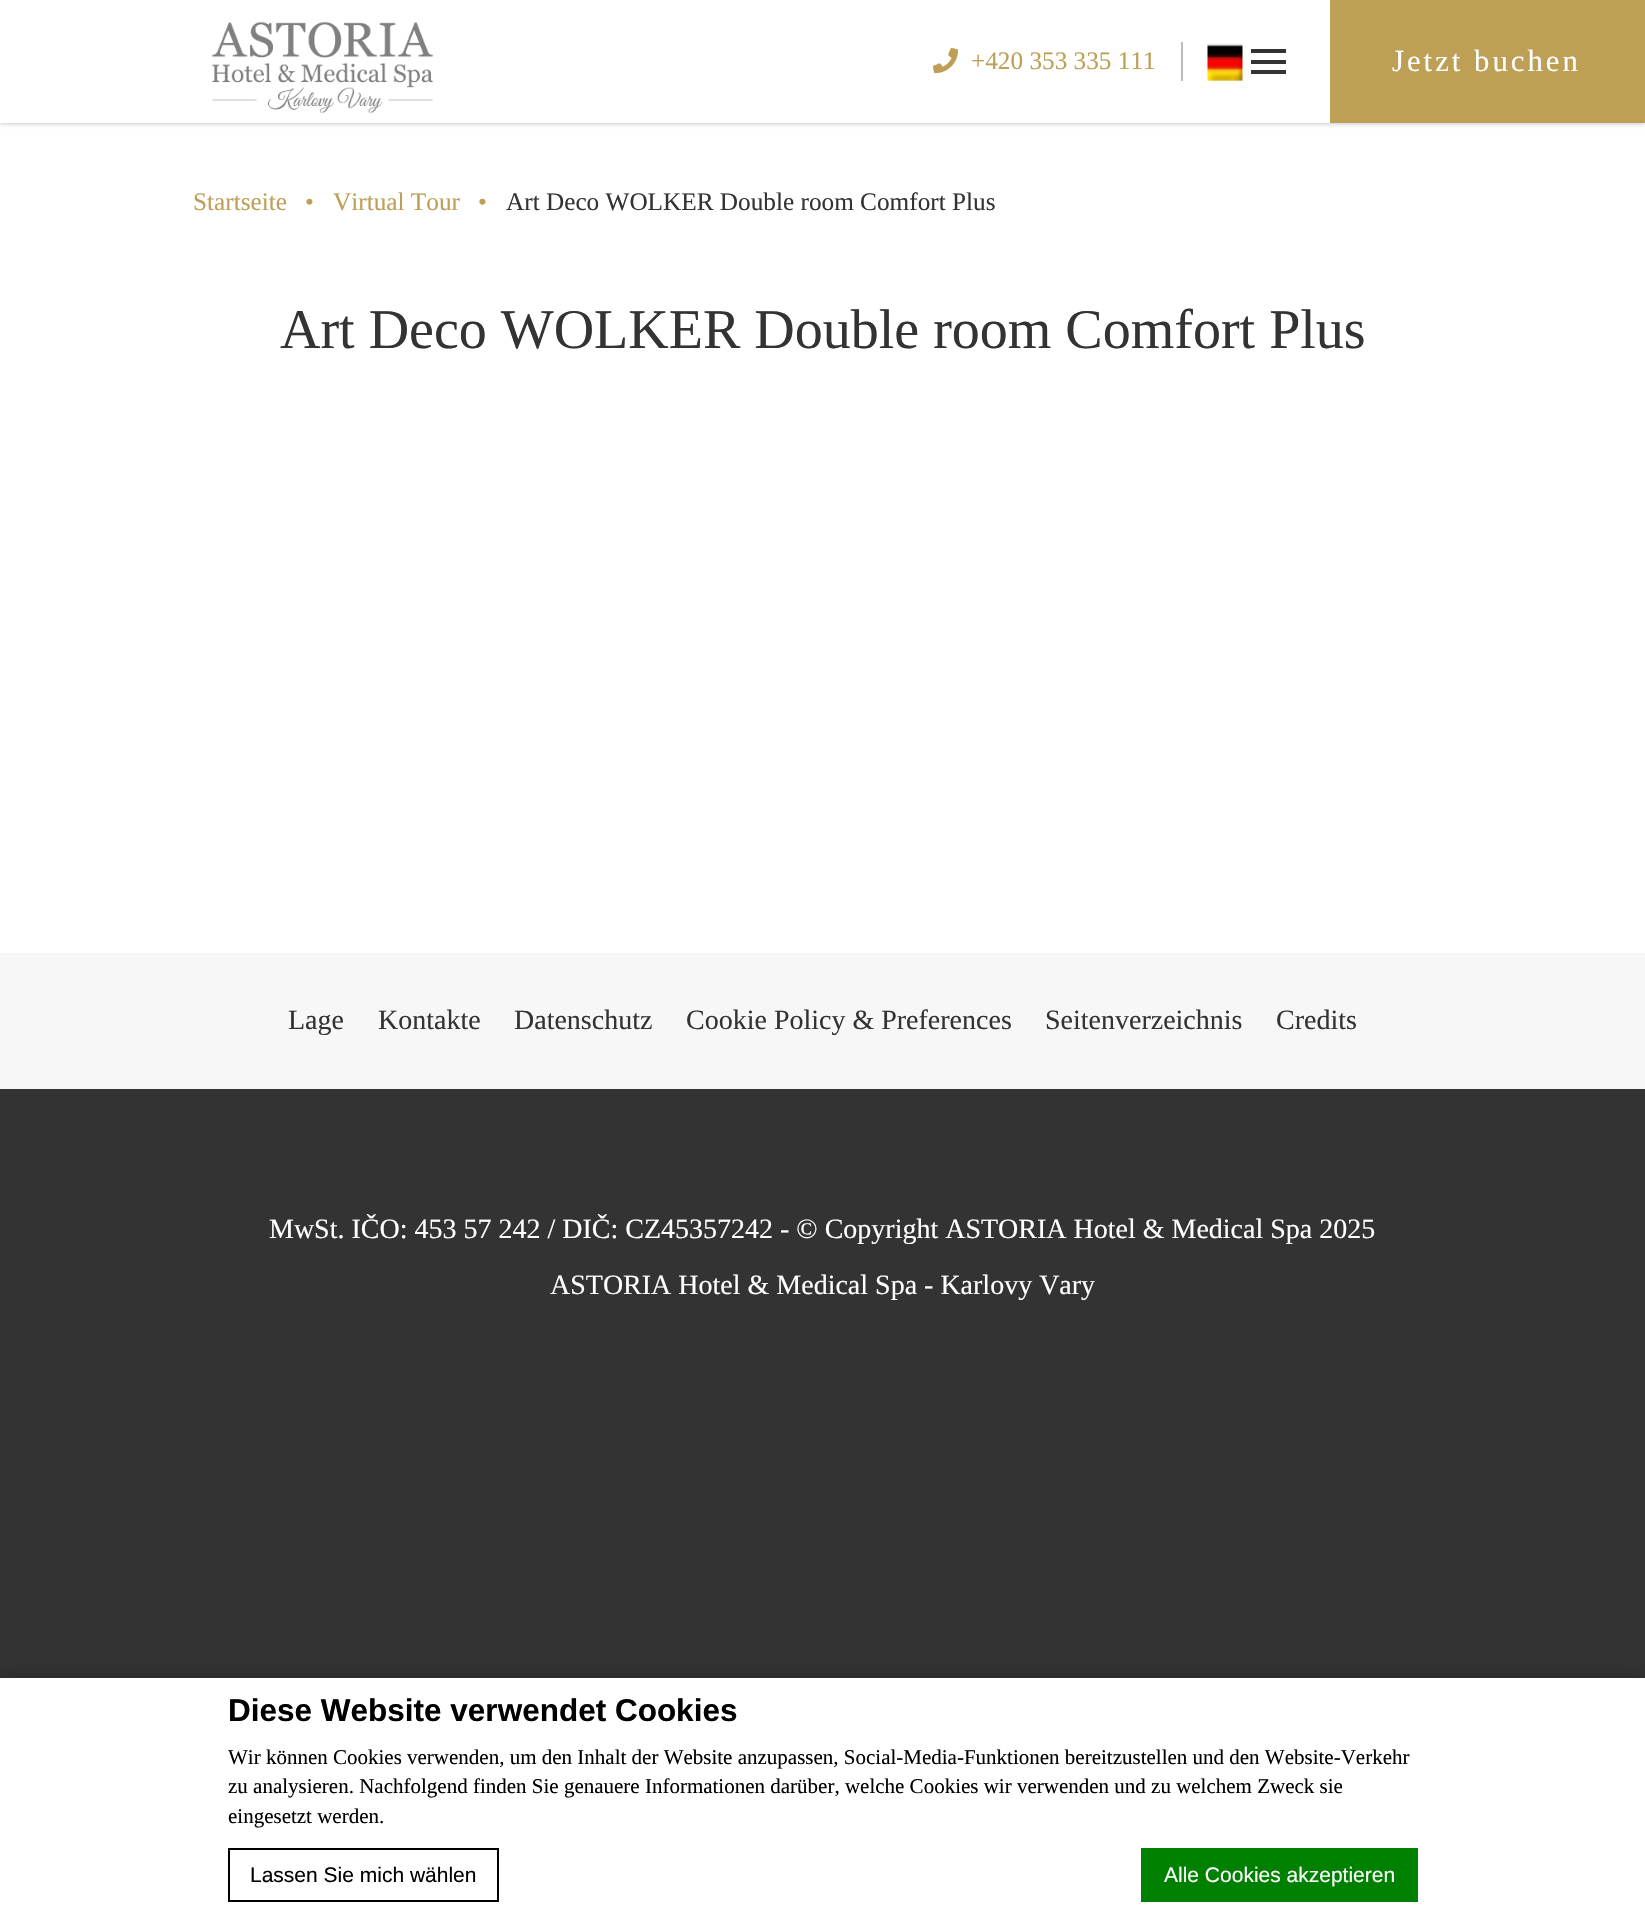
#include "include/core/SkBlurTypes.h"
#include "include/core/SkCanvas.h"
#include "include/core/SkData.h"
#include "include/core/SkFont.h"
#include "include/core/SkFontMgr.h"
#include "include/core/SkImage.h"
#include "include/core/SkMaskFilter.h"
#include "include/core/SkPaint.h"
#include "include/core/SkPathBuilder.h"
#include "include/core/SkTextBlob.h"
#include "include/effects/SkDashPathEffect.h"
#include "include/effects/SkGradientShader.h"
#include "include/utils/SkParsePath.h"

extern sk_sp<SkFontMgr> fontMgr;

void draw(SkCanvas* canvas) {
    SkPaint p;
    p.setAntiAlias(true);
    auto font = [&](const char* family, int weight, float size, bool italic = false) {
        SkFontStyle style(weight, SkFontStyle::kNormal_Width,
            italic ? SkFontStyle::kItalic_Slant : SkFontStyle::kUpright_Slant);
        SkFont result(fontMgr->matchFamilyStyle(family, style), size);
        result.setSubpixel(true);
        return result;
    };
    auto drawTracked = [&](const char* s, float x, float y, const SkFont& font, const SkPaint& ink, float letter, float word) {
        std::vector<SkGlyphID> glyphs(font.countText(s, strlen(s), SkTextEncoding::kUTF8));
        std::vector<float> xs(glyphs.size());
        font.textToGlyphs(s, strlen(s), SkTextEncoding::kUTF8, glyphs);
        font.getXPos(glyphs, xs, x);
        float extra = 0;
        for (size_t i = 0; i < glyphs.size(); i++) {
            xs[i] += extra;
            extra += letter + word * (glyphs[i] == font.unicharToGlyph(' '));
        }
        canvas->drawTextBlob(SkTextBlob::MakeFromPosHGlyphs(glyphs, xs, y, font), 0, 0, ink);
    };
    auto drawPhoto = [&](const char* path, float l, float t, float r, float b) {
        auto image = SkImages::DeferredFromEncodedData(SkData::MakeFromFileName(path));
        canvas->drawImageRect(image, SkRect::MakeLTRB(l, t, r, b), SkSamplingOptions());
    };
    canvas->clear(0xFFFFFFFF);
    p.setColor(0x4D000000);
    p.setMaskFilter(SkMaskFilter::MakeBlur(kNormal_SkBlurStyle, 2.5f));
    canvas->drawRect(SkRect::MakeLTRB(0, 0, 1645, 123), p);
    p.setMaskFilter(nullptr);
    p.setColor(0xFFFFFFFF);
    canvas->drawRect(SkRect::MakeLTRB(0, 0, 1330, 123), p);
    drawPhoto("media/1.png", 212, 21, 434, 113);
    drawPhoto("media/2.png", 932, 48, 958, 74);
    auto font1 = font("Liberation Serif", 400, 25.25f);
    p.setColor(0xFFBD9F56);
    canvas->drawString("+420 353 335 111", 971, 69, font1, p);
    p.setColor(0xFFBABEC3);
    canvas->drawRect(SkRect::MakeLTRB(1181, 42, 1183, 81), p);
    drawPhoto("media/3.png", 1207, 43, 1243, 81);
    {
        const struct { float l, t, r, b; SkColor color; } items[] = {
            {1251, 49, 1286, 53, 0xFF333333},
            {1251, 70, 1286, 74, 0xFF333333},
            {1251, 60, 1286, 64, 0xFF333333},
            {1330, 0, 1645, 123, 0xFFBE9F56},
        };
        for (auto [l, t, r, b, color] : items) {
            p.setColor(color);
            canvas->drawRect(SkRect::MakeLTRB(l, t, r, b), p);
        }
    }
    auto font2 = font("Liberation Serif", 400, 30.75f);
    p.setColor(0xFFFFFFFF);
    drawTracked("Jetzt buchen", 1392, 71, font2, p, 3, 0);
    p.setColor(0xFFBD9F56);
    {
        const struct { const char* s; float x, y; } items[] = {
            {"Startseite", 193, 210},
            {"•", 305, 210},
            {"Virtual Tour", 333, 210},
            {"•", 478, 210},
        };
        for (auto [s, x, y] : items) {
            canvas->drawString(s, x, y, font1, p);
        }
    }
    p.setColor(0xFF333333);
    canvas->drawString("Art Deco WOLKER Double room Comfort Plus", 506, 210, font1, p);
    auto font3 = font("Liberation Serif", 400, 56);
    canvas->drawString("Art Deco WOLKER Double room Comfort Plus", 280, 348, font3, p);
    p.setColor(0xFFF7F7F7);
    canvas->drawRect(SkRect::MakeLTRB(0, 953, 1645, 1089), p);
    auto font4 = font("Liberation Serif", 400, 28);
    p.setColor(0xFF333333);
    {
        const struct { const char* s; float x, y; } items[] = {
            {"Lage", 288, 1029},
            {"Kontakte", 378, 1029},
            {"Datenschutz", 514, 1029},
            {"Cookie Policy & Preferences", 686, 1029},
            {"Seitenverzeichnis", 1045, 1029},
            {"Credits", 1276, 1029},
        };
        for (auto [s, x, y] : items) {
            canvas->drawString(s, x, y, font4, p);
        }
    }
    canvas->drawRect(SkRect::MakeLTRB(0, 1089, 1645, 1678), p);
    p.setColor(0xFFFFFFFF);
    canvas->drawString("MwSt. IČO: 453 57 242 / DIČ: CZ45357242 - © Copyright ASTORIA Hotel & Medical Spa 2025", 269, 1238, font4, p);
    canvas->drawString("ASTORIA Hotel & Medical Spa - Karlovy Vary", 550, 1294, font4, p);
    p.setColor(0x4D000000);
    p.setMaskFilter(SkMaskFilter::MakeBlur(kNormal_SkBlurStyle, 9));
    canvas->drawRect(SkRect::MakeLTRB(0, 1678, 1645, 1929), p);
    p.setMaskFilter(nullptr);
    p.setColor(0xFFFFFFFF);
    canvas->drawRect(SkRect::MakeLTRB(0, 1678, 1645, 1927), p);
    auto font5 = font("Liberation Sans", 700, 31.5f);
    p.setColor(0xFF000000);
    canvas->drawString("Diese Website verwendet Cookies", 228, 1721, font5, p);
    auto font6 = font("Liberation Serif", 400, 21);
    {
        const struct { const char* s; float x, y; } items[] = {
            {"Wir können Cookies verwenden, um den Inhalt der Website anzupassen, Social-Media-Funktionen bereitzustellen und den Website-Verkehr", 228, 1764},
            {"zu analysieren. Nachfolgend finden Sie genauere Informationen darüber, welche Cookies wir verwenden und zu welchem Zweck sie", 228, 1793},
            {"eingesetzt werden.", 228, 1823},
        };
        for (auto [s, x, y] : items) {
            canvas->drawString(s, x, y, font6, p);
        }
    }
    p.setStyle(SkPaint::kStroke_Style);
    p.setStrokeWidth(2);
    canvas->drawRect(SkRect::MakeLTRB(229, 1849, 498, 1901), p);
    auto font7 = font("Liberation Sans", 400, 21);
    p.setStyle(SkPaint::kFill_Style);
    canvas->drawString("Lassen Sie mich wählen", 250, 1882, font7, p);
    p.setColor(0xFF008000);
    canvas->drawRect(SkRect::MakeLTRB(1141, 1848, 1418, 1902), p);
    p.setColor(0xFFFFFFFF);
    canvas->drawString("Alle Cookies akzeptieren", 1164, 1882, font7, p);
}
